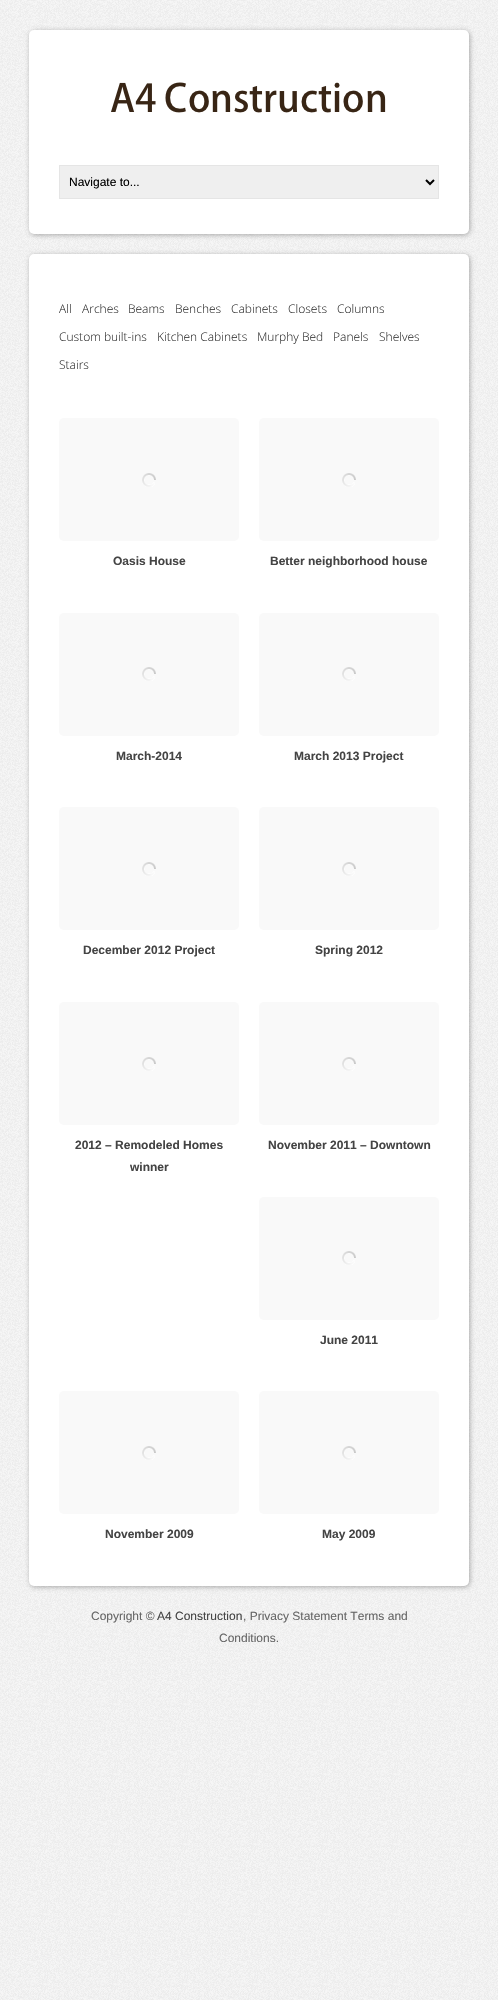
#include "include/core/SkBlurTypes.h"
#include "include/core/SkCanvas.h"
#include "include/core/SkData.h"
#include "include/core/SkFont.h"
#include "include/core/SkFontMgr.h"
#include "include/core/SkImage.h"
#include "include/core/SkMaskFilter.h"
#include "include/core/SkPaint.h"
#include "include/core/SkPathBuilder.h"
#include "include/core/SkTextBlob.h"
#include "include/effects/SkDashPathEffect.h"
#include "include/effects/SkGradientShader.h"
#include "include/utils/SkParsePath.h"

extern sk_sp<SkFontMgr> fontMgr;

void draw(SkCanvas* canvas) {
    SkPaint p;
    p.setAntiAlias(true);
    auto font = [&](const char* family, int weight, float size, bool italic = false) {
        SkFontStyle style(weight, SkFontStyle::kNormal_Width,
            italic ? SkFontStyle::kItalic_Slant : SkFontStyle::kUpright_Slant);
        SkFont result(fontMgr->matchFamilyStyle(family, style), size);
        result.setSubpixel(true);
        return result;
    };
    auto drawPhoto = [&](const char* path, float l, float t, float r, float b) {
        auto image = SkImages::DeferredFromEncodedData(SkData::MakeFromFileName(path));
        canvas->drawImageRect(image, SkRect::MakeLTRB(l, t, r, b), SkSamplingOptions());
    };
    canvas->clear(0xFFFFFFFF);
    drawPhoto("media/1.png", 0, 0, 498, 2000);
    p.setColor(0x4D000000);
    p.setMaskFilter(SkMaskFilter::MakeBlur(kNormal_SkBlurStyle, 2.5f));
    canvas->drawRoundRect(SkRect::MakeLTRB(30, 31, 470, 235), 5, 5, p);
    p.setMaskFilter(nullptr);
    p.setColor(0xFFFFFFFF);
    canvas->drawRoundRect(SkRect::MakeLTRB(29, 30, 469, 234), 5, 5, p);
    drawPhoto("media/2.png", 111, 82, 386, 113);
    p.setColor(0xFFEFEFEF);
    canvas->drawRect(SkRect::MakeLTRB(59.5f, 165.5f, 438.5f, 198.5f), p);
    p.setStyle(SkPaint::kStroke_Style);
    p.setStrokeWidth(1);
    p.setColor(0xFFE5E5E5);
    canvas->drawRect(SkRect::MakeLTRB(59.5f, 165.5f, 438.5f, 198.5f), p);
    p.setStrokeWidth(2);
    p.setColor(0xFF000000);
    canvas->drawPath(SkPathBuilder().moveTo(426, 180).lineTo(430, 184).lineTo(434, 180).detach(), p);
    auto font1 = font("Liberation Sans", 400, 12);
    p.setStyle(SkPaint::kFill_Style);
    canvas->drawString("Navigate to...", 69, 186, font1, p);
    p.setColor(0x4D000000);
    p.setMaskFilter(SkMaskFilter::MakeBlur(kNormal_SkBlurStyle, 2.5f));
    canvas->drawRoundRect(SkRect::MakeLTRB(30, 255, 470, 1587), 5, 5, p);
    p.setMaskFilter(nullptr);
    p.setColor(0xFFFFFFFF);
    canvas->drawRoundRect(SkRect::MakeLTRB(29, 254, 469, 1586), 5, 5, p);
    auto font2 = font("Open Sans", 300, 12);
    p.setColor(0xFF333333);
    {
        const struct { const char* s; float x, y; } items[] = {
            {"All", 59, 313},
            {"Arches", 82, 313},
            {"Beams", 128, 313},
            {"Benches", 175, 313},
            {"Cabinets", 231, 313},
            {"Closets", 288, 313},
            {"Columns", 337, 313},
            {"Custom built-ins", 59, 341},
            {"Kitchen Cabinets", 157, 341},
            {"Murphy Bed", 257, 341},
            {"Panels", 333, 341},
            {"Shelves", 379, 341},
            {"Stairs", 59, 369},
        };
        for (auto [s, x, y] : items) {
            canvas->drawString(s, x, y, font2, p);
        }
    }
    p.setColor(0xFFF9F9F9);
    canvas->drawRoundRect(SkRect::MakeLTRB(59, 418, 239, 541), 5, 5, p);
    drawPhoto("media/3.png", 142, 473, 156, 487);
    auto font3 = font("Liberation Sans", 700, 12);
    p.setColor(0xFF444444);
    canvas->drawString("Oasis House", 113, 565, font3, p);
    p.setColor(0xFFF9F9F9);
    canvas->drawRoundRect(SkRect::MakeLTRB(259, 418, 439, 541), 5, 5, p);
    drawPhoto("media/3.png", 342, 473, 356, 487);
    p.setColor(0xFF444444);
    canvas->drawString("Better neighborhood house", 270, 565, font3, p);
    p.setColor(0xFFF9F9F9);
    canvas->drawRoundRect(SkRect::MakeLTRB(59, 613, 239, 736), 5, 5, p);
    drawPhoto("media/3.png", 142, 667, 156, 681);
    p.setColor(0xFF444444);
    canvas->drawString("March-2014", 116, 760, font3, p);
    p.setColor(0xFFF9F9F9);
    canvas->drawRoundRect(SkRect::MakeLTRB(259, 613, 439, 736), 5, 5, p);
    drawPhoto("media/3.png", 342, 667, 356, 681);
    p.setColor(0xFF444444);
    canvas->drawString("March 2013 Project", 294, 760, font3, p);
    p.setColor(0xFFF9F9F9);
    canvas->drawRoundRect(SkRect::MakeLTRB(59, 807, 239, 930), 5, 5, p);
    drawPhoto("media/3.png", 142, 862, 156, 876);
    p.setColor(0xFF444444);
    canvas->drawString("December 2012 Project", 83, 954, font3, p);
    p.setColor(0xFFF9F9F9);
    canvas->drawRoundRect(SkRect::MakeLTRB(259, 807, 439, 930), 5, 5, p);
    drawPhoto("media/3.png", 342, 862, 356, 876);
    p.setColor(0xFF444444);
    canvas->drawString("Spring 2012", 315, 954, font3, p);
    p.setColor(0xFFF9F9F9);
    canvas->drawRoundRect(SkRect::MakeLTRB(59, 1002, 239, 1125), 5, 5, p);
    drawPhoto("media/3.png", 142, 1057, 156, 1071);
    p.setColor(0xFF444444);
    canvas->drawString("2012 – Remodeled Homes", 75, 1149, font3, p);
    canvas->drawString("winner", 130, 1171, font3, p);
    p.setColor(0xFFF9F9F9);
    canvas->drawRoundRect(SkRect::MakeLTRB(259, 1002, 439, 1125), 5, 5, p);
    drawPhoto("media/3.png", 342, 1057, 356, 1071);
    p.setColor(0xFF444444);
    canvas->drawString("November 2011 – Downtown", 268, 1149, font3, p);
    p.setColor(0xFFF9F9F9);
    canvas->drawRoundRect(SkRect::MakeLTRB(259, 1197, 439, 1320), 5, 5, p);
    drawPhoto("media/3.png", 342, 1251, 356, 1265);
    p.setColor(0xFF444444);
    canvas->drawString("June 2011", 320, 1344, font3, p);
    p.setColor(0xFFF9F9F9);
    canvas->drawRoundRect(SkRect::MakeLTRB(59, 1391, 239, 1514), 5, 5, p);
    drawPhoto("media/3.png", 142, 1446, 156, 1460);
    p.setColor(0xFF444444);
    canvas->drawString("November 2009", 105, 1538, font3, p);
    p.setColor(0xFFF9F9F9);
    canvas->drawRoundRect(SkRect::MakeLTRB(259, 1391, 439, 1514), 5, 5, p);
    drawPhoto("media/3.png", 342, 1446, 356, 1460);
    p.setColor(0xFF444444);
    canvas->drawString("May 2009", 322, 1538, font3, p);
    p.setColor(0xFF666666);
    canvas->drawString("Copyright ©", 91, 1620, font1, p);
    p.setColor(0xFF444444);
    canvas->drawString("A4 Construction", 157, 1620, font1, p);
    p.setColor(0xFF666666);
    canvas->drawString(", Privacy Statement Terms and", 243, 1620, font1, p);
    canvas->drawString("Conditions.", 219, 1642, font1, p);
}
